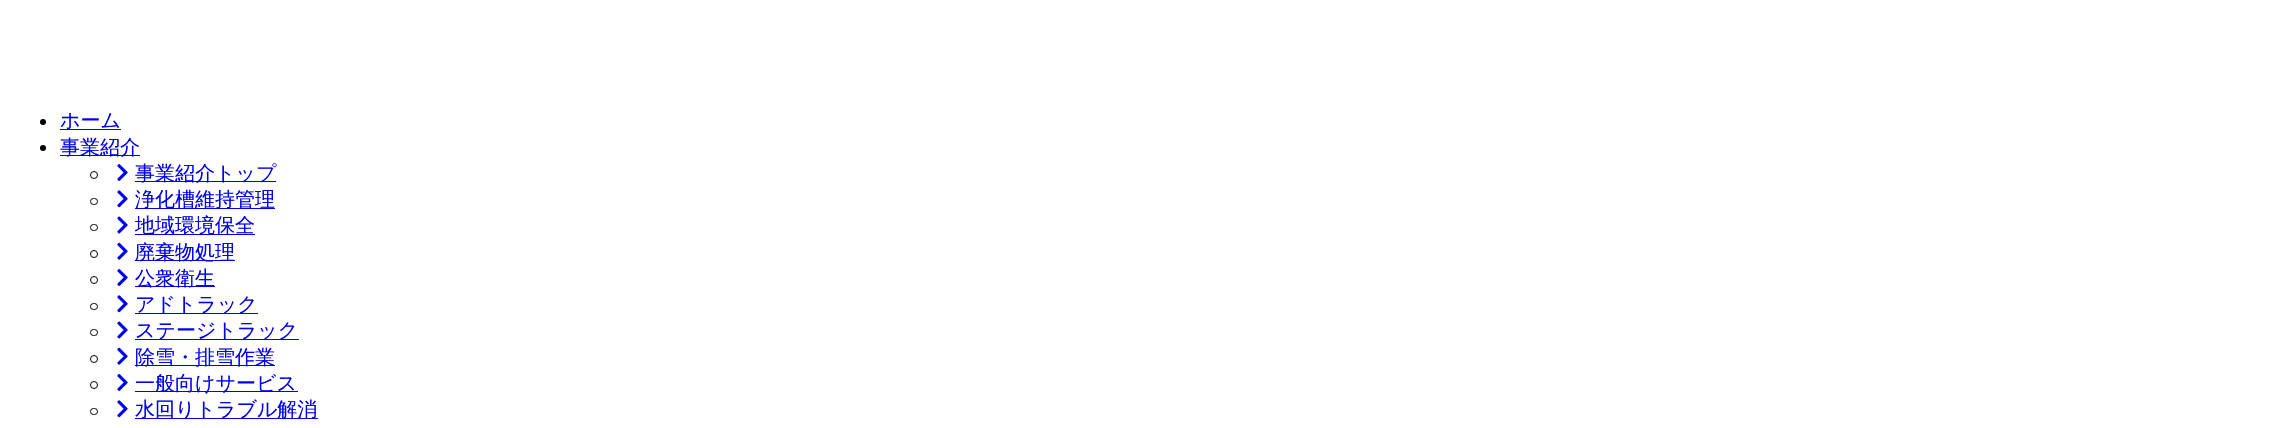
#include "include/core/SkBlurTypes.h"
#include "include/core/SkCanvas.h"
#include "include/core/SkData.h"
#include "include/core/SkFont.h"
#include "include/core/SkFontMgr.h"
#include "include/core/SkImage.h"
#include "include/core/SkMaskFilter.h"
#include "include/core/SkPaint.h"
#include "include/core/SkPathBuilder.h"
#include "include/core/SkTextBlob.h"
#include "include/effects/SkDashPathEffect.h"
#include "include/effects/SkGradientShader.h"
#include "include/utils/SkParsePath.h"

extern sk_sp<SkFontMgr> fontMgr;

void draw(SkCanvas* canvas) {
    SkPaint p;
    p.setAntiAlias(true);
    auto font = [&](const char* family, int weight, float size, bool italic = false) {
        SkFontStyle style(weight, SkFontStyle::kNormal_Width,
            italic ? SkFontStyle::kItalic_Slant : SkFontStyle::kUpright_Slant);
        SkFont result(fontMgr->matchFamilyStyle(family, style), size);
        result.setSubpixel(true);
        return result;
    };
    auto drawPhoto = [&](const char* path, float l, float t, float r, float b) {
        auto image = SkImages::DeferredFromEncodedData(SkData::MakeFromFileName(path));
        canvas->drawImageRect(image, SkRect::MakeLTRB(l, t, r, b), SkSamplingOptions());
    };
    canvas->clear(0xFFFFFFFF);
    p.setColor(0xFF000000);
    canvas->drawCircle(43, 122, 3, p);
    p.setColor(0xFF0000EE);
    canvas->drawRect(SkRect::MakeLTRB(60, 129, 121, 130), p);
    auto font1 = font("WenQuanYi Zen Hei", 500, 20);
    canvas->drawString("ホーム", 60, 127, font1, p);
    p.setColor(0xFF000000);
    canvas->drawCircle(43, 148, 3, p);
    p.setColor(0xFF0000EE);
    canvas->drawRect(SkRect::MakeLTRB(60, 155, 140, 156), p);
    canvas->drawString("事業紹介", 60, 154, font1, p);
    p.setStyle(SkPaint::kStroke_Style);
    p.setStrokeWidth(1);
    p.setColor(0xFF000000);
    canvas->drawCircle(94, 175, 3.5f, p);
    drawPhoto("media/1.png", 117, 164, 128, 181);
    p.setStyle(SkPaint::kFill_Style);
    p.setColor(0xFF0000EE);
    canvas->drawRect(SkRect::MakeLTRB(135, 181, 276, 182), p);
    canvas->drawString("事業紹介トップ", 135, 180, font1, p);
    p.setStyle(SkPaint::kStroke_Style);
    p.setColor(0xFF000000);
    canvas->drawRoundRect(SkRect::MakeLTRB(90.5f, 198.5f, 97.5f, 204.5f), 3, 3, p);
    drawPhoto("media/2.png", 117, 190, 128, 208);
    p.setStyle(SkPaint::kFill_Style);
    p.setColor(0xFF0000EE);
    canvas->drawRect(SkRect::MakeLTRB(135, 208, 275, 209), p);
    canvas->drawString("浄化槽維持管理", 135, 206, font1, p);
    p.setStyle(SkPaint::kStroke_Style);
    p.setColor(0xFF000000);
    canvas->drawRoundRect(SkRect::MakeLTRB(90.5f, 224.5f, 97.5f, 230.5f), 3, 3, p);
    drawPhoto("media/3.png", 117, 216, 128, 234);
    p.setStyle(SkPaint::kFill_Style);
    p.setColor(0xFF0000EE);
    canvas->drawRect(SkRect::MakeLTRB(135, 234, 255, 235), p);
    canvas->drawString("地域環境保全", 135, 232, font1, p);
    p.setStyle(SkPaint::kStroke_Style);
    p.setColor(0xFF000000);
    canvas->drawCircle(94, 254, 3.5f, p);
    drawPhoto("media/4.png", 117, 242, 128, 260);
    p.setStyle(SkPaint::kFill_Style);
    p.setColor(0xFF0000EE);
    canvas->drawRect(SkRect::MakeLTRB(135, 260, 235, 261), p);
    canvas->drawString("廃棄物処理", 135, 259, font1, p);
    p.setStyle(SkPaint::kStroke_Style);
    p.setColor(0xFF000000);
    canvas->drawCircle(94, 280, 3.5f, p);
    drawPhoto("media/1.png", 117, 269, 128, 286);
    p.setStyle(SkPaint::kFill_Style);
    p.setColor(0xFF0000EE);
    canvas->drawRect(SkRect::MakeLTRB(135, 286, 215, 287), p);
    canvas->drawString("公衆衛生", 135, 285, font1, p);
    p.setStyle(SkPaint::kStroke_Style);
    p.setColor(0xFF000000);
    canvas->drawRoundRect(SkRect::MakeLTRB(90.5f, 303.5f, 97.5f, 309.5f), 3, 3, p);
    drawPhoto("media/2.png", 117, 295, 128, 313);
    p.setStyle(SkPaint::kFill_Style);
    p.setColor(0xFF0000EE);
    canvas->drawRect(SkRect::MakeLTRB(135, 313, 258, 314), p);
    canvas->drawString("アドトラック", 135, 311, font1, p);
    p.setStyle(SkPaint::kStroke_Style);
    p.setColor(0xFF000000);
    canvas->drawRoundRect(SkRect::MakeLTRB(90.5f, 329.5f, 97.5f, 335.5f), 3, 3, p);
    drawPhoto("media/3.png", 117, 321, 128, 339);
    p.setStyle(SkPaint::kFill_Style);
    p.setColor(0xFF0000EE);
    canvas->drawRect(SkRect::MakeLTRB(135, 339, 299, 340), p);
    canvas->drawString("ステージトラック", 135, 337, font1, p);
    p.setStyle(SkPaint::kStroke_Style);
    p.setColor(0xFF000000);
    canvas->drawCircle(94, 359, 3.5f, p);
    drawPhoto("media/4.png", 117, 347, 128, 365);
    p.setStyle(SkPaint::kFill_Style);
    p.setColor(0xFF0000EE);
    canvas->drawRect(SkRect::MakeLTRB(135, 365, 275, 366), p);
    canvas->drawString("除雪・排雪作業", 135, 364, font1, p);
    p.setStyle(SkPaint::kStroke_Style);
    p.setColor(0xFF000000);
    canvas->drawCircle(94, 385, 3.5f, p);
    drawPhoto("media/1.png", 117, 374, 128, 391);
    p.setStyle(SkPaint::kFill_Style);
    p.setColor(0xFF0000EE);
    canvas->drawRect(SkRect::MakeLTRB(135, 391, 298, 392), p);
    canvas->drawString("一般向けサービス", 135, 390, font1, p);
    p.setStyle(SkPaint::kStroke_Style);
    p.setColor(0xFF000000);
    canvas->drawRoundRect(SkRect::MakeLTRB(90.5f, 408.5f, 97.5f, 414.5f), 3, 3, p);
    drawPhoto("media/2.png", 117, 400, 128, 418);
    p.setStyle(SkPaint::kFill_Style);
    p.setColor(0xFF0000EE);
    canvas->drawRect(SkRect::MakeLTRB(135, 418, 318, 419), p);
    canvas->drawString("水回りトラブル解消", 135, 416, font1, p);
}
